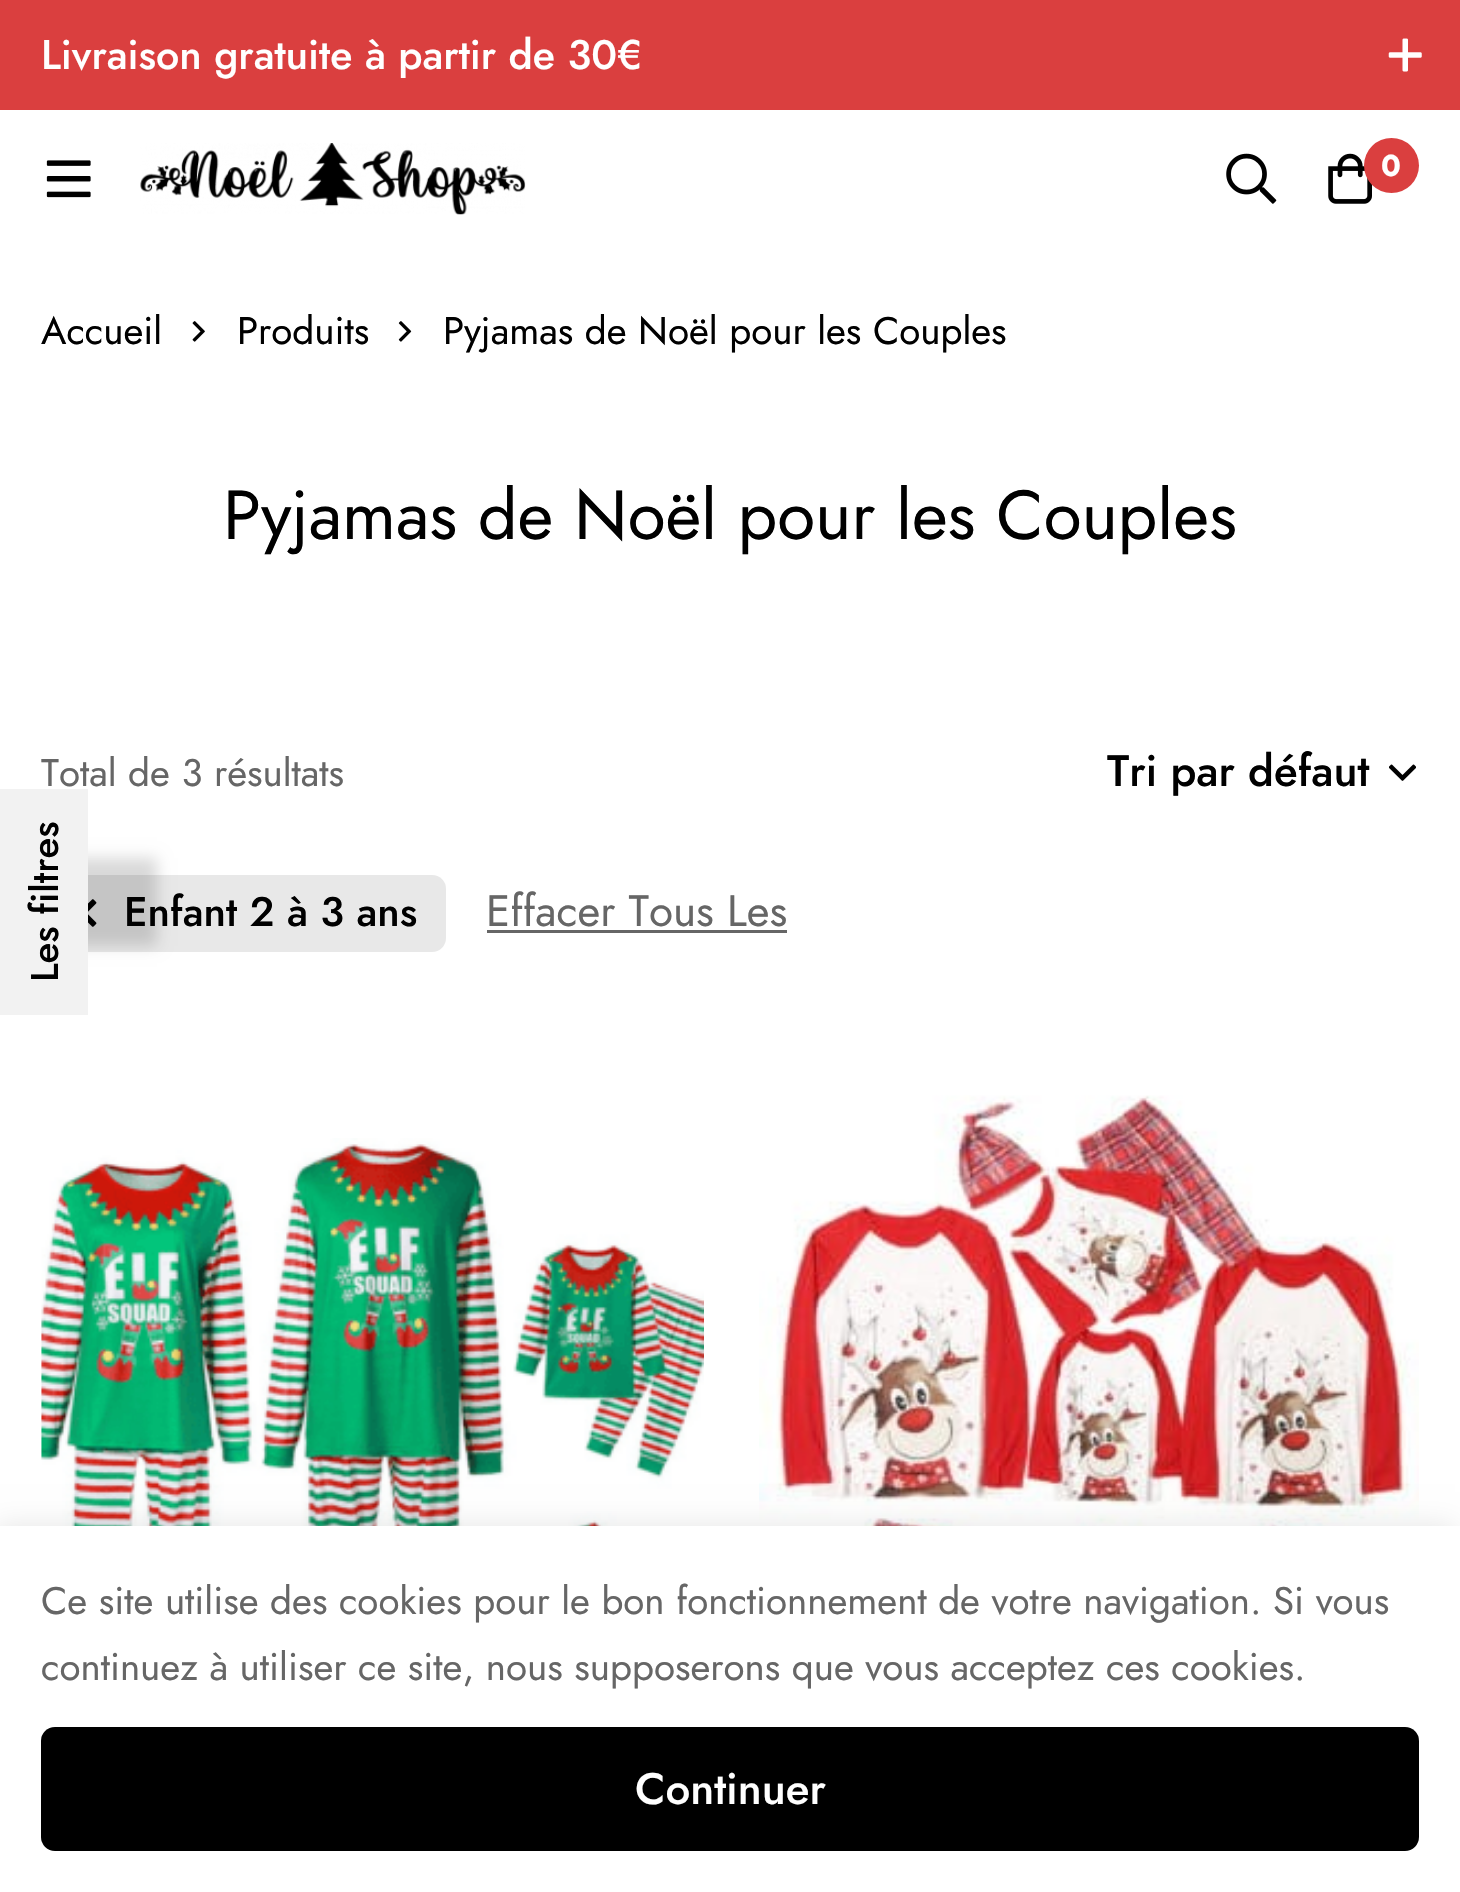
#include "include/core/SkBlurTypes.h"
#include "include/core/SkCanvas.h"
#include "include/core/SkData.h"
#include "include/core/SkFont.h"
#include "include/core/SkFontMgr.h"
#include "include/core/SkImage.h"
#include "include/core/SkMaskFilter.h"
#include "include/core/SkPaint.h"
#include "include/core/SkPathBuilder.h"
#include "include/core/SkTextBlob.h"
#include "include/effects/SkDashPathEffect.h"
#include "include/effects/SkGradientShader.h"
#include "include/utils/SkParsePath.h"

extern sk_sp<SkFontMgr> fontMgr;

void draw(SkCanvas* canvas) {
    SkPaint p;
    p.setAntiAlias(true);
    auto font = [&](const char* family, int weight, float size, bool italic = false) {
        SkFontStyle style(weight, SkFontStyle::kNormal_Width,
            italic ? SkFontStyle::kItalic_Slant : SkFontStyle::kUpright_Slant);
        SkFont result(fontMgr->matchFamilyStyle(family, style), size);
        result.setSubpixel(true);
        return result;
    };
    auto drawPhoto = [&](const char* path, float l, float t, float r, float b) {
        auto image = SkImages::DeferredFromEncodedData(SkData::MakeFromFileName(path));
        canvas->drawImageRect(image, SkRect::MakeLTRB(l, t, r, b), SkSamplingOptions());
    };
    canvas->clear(0xFFFFFFFF);
    p.setColor(0xFFDA3F3F);
    canvas->drawRect(SkRect::MakeLTRB(0, 0, 1460, 110), p);
    auto font1 = font("Jost", 500, 41.25f);
    p.setColor(0xFFFFFFFF);
    canvas->drawString("Livraison gratuite à partir de 30€", 41, 69, font1, p);
    drawPhoto("media/1.png", 1388, 38, 1422, 72);
    drawPhoto("media/2.png", 46, 160, 91, 198);
    drawPhoto("media/3.png", 140, 143, 526, 215);
    drawPhoto("media/4.png", 1226, 153, 1277, 204);
    drawPhoto("media/5.png", 1328, 153, 1372, 204);
    p.setColor(0xFFDA3F3F);
    canvas->drawCircle(1391.5f, 165.5f, 27.5f, p);
    auto font2 = font("Jost", 700, 30);
    p.setColor(0xFFFFFFFF);
    canvas->drawString("0", 1381, 176, font2, p);
    auto font3 = font("Jost", 400, 38.5f);
    p.setColor(0xFF000000);
    canvas->drawString("Accueil", 41, 344, font3, p);
    drawPhoto("media/6.png", 192, 321, 205, 342);
    canvas->drawString("Produits", 237, 344, font3, p);
    drawPhoto("media/7.png", 398, 321, 412, 342);
    canvas->drawString("Pyjamas de Noël pour les Couples", 443, 344, font3, p);
    auto font4 = font("Jost", 400, 69.25f);
    canvas->drawString("Pyjamas de Noël pour les Couples", 223, 539, font4, p);
    p.setColor(0xFF666666);
    canvas->drawString("Total de 3 résultats", 41, 786, font3, p);
    drawPhoto("media/8.png", 1389, 764, 1416, 781);
    auto font5 = font("Jost", 500, 44);
    p.setColor(0xFF000000);
    canvas->drawString("Tri par défaut", 1107, 786, font5, p);
    p.setColor(0xFFE8E8E8);
    canvas->drawRoundRect(SkRect::MakeLTRB(41, 875, 446, 952), 14, 14, p);
    drawPhoto("media/9.png", 88, 899, 97, 927);
    p.setColor(0xFF000000);
    canvas->drawString("Enfant 2 à 3 ans", 124, 926, font1, p);
    auto font6 = font("Jost", 400, 44);
    p.setColor(0xFF666666);
    canvas->drawString("Effacer Tous Les", 486, 926, font6, p);
    canvas->drawRect(SkRect::MakeLTRB(487, 930, 787, 933), p);
    drawPhoto("media/10.png", 41, 1138, 704, 1526);
    drawPhoto("media/11.png", 759, 1095, 1419, 1526);
    p.setColor(0x26000000);
    p.setMaskFilter(SkMaskFilter::MakeBlur(kNormal_SkBlurStyle, 7));
    canvas->drawRect(SkRect::MakeLTRB(-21, 858, 157, 946), p);
    p.setMaskFilter(nullptr);
    p.setColor(0xFFF2F2F2);
    canvas->drawRect(SkRect::MakeLTRB(0, 789, 88, 1015), p);
    auto font7 = font("Jost", 500, 38.5f);
    p.setColor(0xFF000000);
    canvas->save();
    canvas->rotate(-90, 58, 982);
    canvas->drawString("Les filtres", 58, 982, font7, p);
    canvas->restore();
    p.setColor(0x1A000000);
    p.setMaskFilter(SkMaskFilter::MakeBlur(kNormal_SkBlurStyle, 14));
    canvas->drawRect(SkRect::MakeLTRB(-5, 1526, 1455, 1892), p);
    p.setMaskFilter(nullptr);
    p.setColor(0xFFFFFFFF);
    canvas->drawRect(SkRect::MakeLTRB(0, 1526, 1460, 1892), p);
    p.setColor(0xFF666666);
    canvas->drawString("Ce site utilise des cookies pour le bon fonctionnement de votre navigation. Si vous", 41, 1614, font3, p);
    canvas->drawString("continuez à utiliser ce site, nous supposerons que vous acceptez ces cookies.", 41, 1680, font3, p);
    p.setColor(0xFF000000);
    canvas->drawRoundRect(SkRect::MakeLTRB(41, 1727, 1419, 1851), 14, 14, p);
    p.setColor(0xFFFFFFFF);
    canvas->drawString("Continuer", 635, 1804, font5, p);
}
